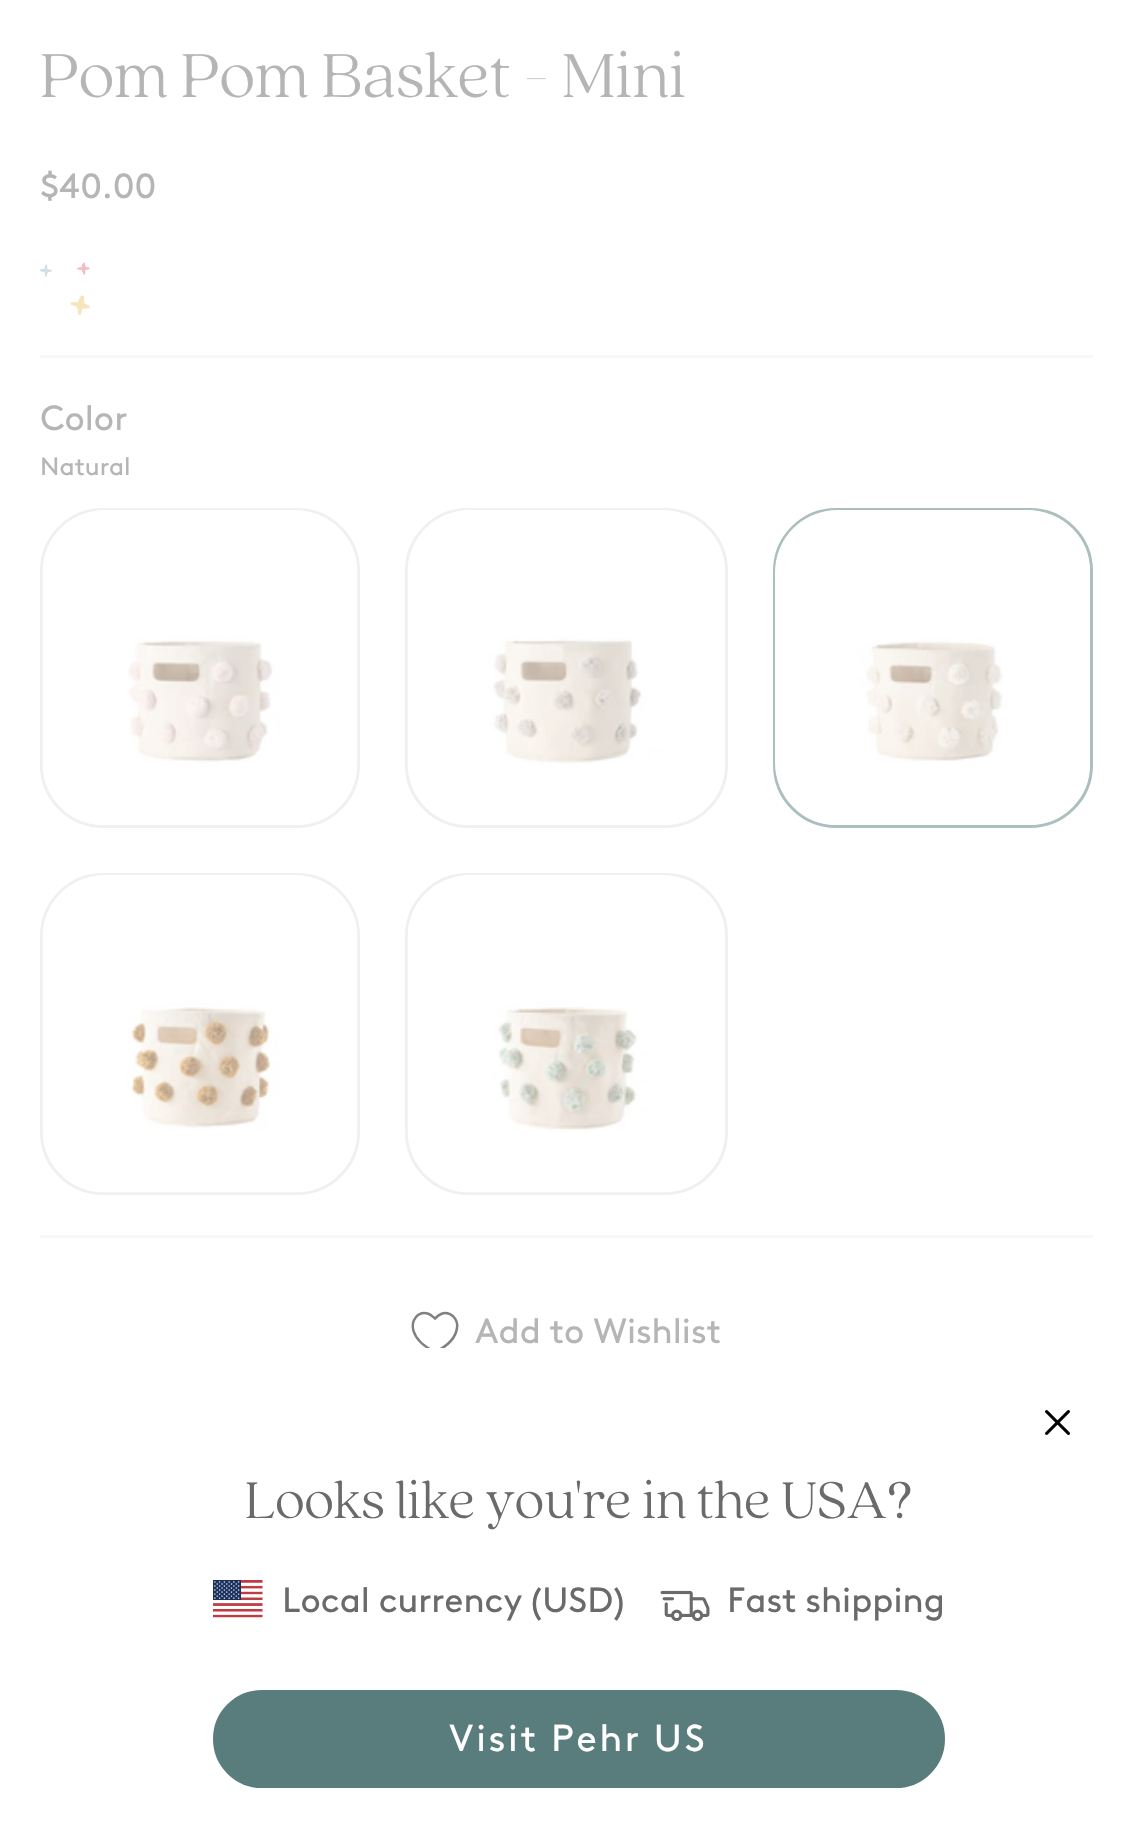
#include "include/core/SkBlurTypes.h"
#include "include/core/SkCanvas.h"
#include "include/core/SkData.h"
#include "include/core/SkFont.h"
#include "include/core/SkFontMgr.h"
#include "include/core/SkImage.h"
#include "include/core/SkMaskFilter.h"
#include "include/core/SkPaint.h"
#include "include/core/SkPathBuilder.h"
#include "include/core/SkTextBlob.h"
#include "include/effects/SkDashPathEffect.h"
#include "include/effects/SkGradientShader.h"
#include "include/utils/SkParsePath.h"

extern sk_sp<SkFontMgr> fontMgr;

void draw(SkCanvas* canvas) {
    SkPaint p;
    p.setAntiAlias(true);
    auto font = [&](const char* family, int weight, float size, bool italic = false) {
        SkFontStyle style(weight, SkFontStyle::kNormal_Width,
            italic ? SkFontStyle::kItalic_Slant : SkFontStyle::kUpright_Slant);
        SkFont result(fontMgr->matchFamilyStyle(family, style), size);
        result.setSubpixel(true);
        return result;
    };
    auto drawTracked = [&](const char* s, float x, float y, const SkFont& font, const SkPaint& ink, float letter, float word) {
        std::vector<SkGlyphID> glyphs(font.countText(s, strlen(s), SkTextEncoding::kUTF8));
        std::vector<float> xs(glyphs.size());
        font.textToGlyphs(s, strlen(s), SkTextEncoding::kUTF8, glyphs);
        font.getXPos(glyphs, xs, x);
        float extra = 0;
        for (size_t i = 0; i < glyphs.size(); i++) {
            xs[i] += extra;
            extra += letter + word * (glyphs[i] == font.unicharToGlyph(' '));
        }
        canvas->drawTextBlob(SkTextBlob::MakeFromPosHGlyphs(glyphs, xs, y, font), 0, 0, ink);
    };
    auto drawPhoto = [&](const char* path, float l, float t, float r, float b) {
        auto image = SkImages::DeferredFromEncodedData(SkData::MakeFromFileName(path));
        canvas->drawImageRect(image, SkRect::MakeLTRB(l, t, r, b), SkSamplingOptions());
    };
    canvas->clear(0xFFFFFFFF);
    auto font1 = font("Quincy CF", 100, 69);
    p.setColor(0xFFB5B5B5);
    canvas->drawString("Pom Pom Basket - Mini", 40, 97, font1, p);
    auto font2 = font("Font", 400, 35);
    canvas->drawString("$40.00", 40, 198, font2, p);
    drawPhoto("media/1.png", 40, 262, 90, 315);
    p.setColor(0xFFF8F8F8);
    canvas->drawRect(SkRect::MakeLTRB(40, 355, 1093, 358), p);
    canvas->drawRect(SkRect::MakeLTRB(40, 1235, 1093, 1238), p);
    p.setColor(0xFFB5B5B5);
    canvas->drawString("Color", 40, 430, font2, p);
    auto font3 = font("Font", 400, 25);
    canvas->drawString("Natural", 40, 475, font3, p);
    p.setStyle(SkPaint::kStroke_Style);
    p.setStrokeWidth(3);
    p.setColor(0xFFF0F0F0);
    canvas->drawRoundRect(SkRect::MakeLTRB(41.5f, 509.5f, 358.5f, 826.5f), 61.5f, 61.5f, p);
    drawPhoto("media/2.png", 42, 510, 358, 825);
    canvas->drawRoundRect(SkRect::MakeLTRB(406.5f, 509.5f, 726.5f, 826.5f), 61.5f, 61.5f, p);
    drawPhoto("media/3.png", 407, 510, 725, 825);
    p.setColor(0xFFACBEBE);
    canvas->drawRoundRect(SkRect::MakeLTRB(774.5f, 509.5f, 1091.5f, 826.5f), 61.5f, 61.5f, p);
    drawPhoto("media/4.png", 775, 510, 1090, 825);
    p.setColor(0xFFF0F0F0);
    canvas->drawRoundRect(SkRect::MakeLTRB(41.5f, 874.5f, 358.5f, 1193.5f), 61.5f, 61.5f, p);
    drawPhoto("media/5.png", 42, 875, 358, 1193);
    canvas->drawRoundRect(SkRect::MakeLTRB(406.5f, 874.5f, 726.5f, 1193.5f), 61.5f, 61.5f, p);
    drawPhoto("media/6.png", 407, 875, 725, 1193);
    p.setStrokeWidth(2.5f);
    p.setColor(0xFF808080);
    canvas->drawPath(SkPathBuilder().moveTo(435, 1352).cubicTo(426, 1347.5f, 416.5f, 1341, 413.5f, 1331).cubicTo(410.5f, 1321, 418, 1309.5f, 429, 1314).cubicTo(431.5f, 1315, 433, 1317, 435, 1318.5f).cubicTo(436.5f, 1317, 438.5f, 1315, 441, 1314).cubicTo(450, 1310, 458.5f, 1319, 457, 1328).cubicTo(455.5f, 1339.5f, 444.5f, 1347.5f, 435, 1352).close().detach(), p);
    p.setStyle(SkPaint::kFill_Style);
    p.setColor(0xFFB5B5B5);
    canvas->drawString("Add to Wishlist", 475, 1343, font2, p);
    p.setColor(0xFFFFFFFF);
    canvas->drawRect(SkRect::MakeLTRB(426, 1348, 445, 1354), p);
    drawPhoto("media/7.png", 1045, 1410, 1070, 1435);
    auto font4 = font("Quincy CF", 100, 57);
    p.setColor(0xFF6B6A6A);
    canvas->drawString("Looks like you're in the USA?", 245, 1518, font4, p);
    drawPhoto("media/8.png", 213, 1580, 263, 1618);
    canvas->drawString("Local currency (USD)", 282, 1612, font2, p);
    drawPhoto("media/9.png", 660, 1590, 710, 1622);
    canvas->drawString("Fast shipping", 727, 1612, font2, p);
    p.setColor(0xFF597C7C);
    canvas->drawRoundRect(SkRect::MakeLTRB(214.5f, 1691.5f, 943.5f, 1786.5f), 47.5f, 47.5f, p);
    p.setStyle(SkPaint::kStroke_Style);
    p.setStrokeWidth(3);
    canvas->drawRoundRect(SkRect::MakeLTRB(214.5f, 1691.5f, 943.5f, 1786.5f), 47.5f, 47.5f, p);
    auto font5 = font("Font", 400, 37.5f);
    p.setStyle(SkPaint::kFill_Style);
    p.setColor(0xFFFFFFFF);
    drawTracked("Visit Pehr US", 449, 1751, font5, p, 2.75f, 0);
}
